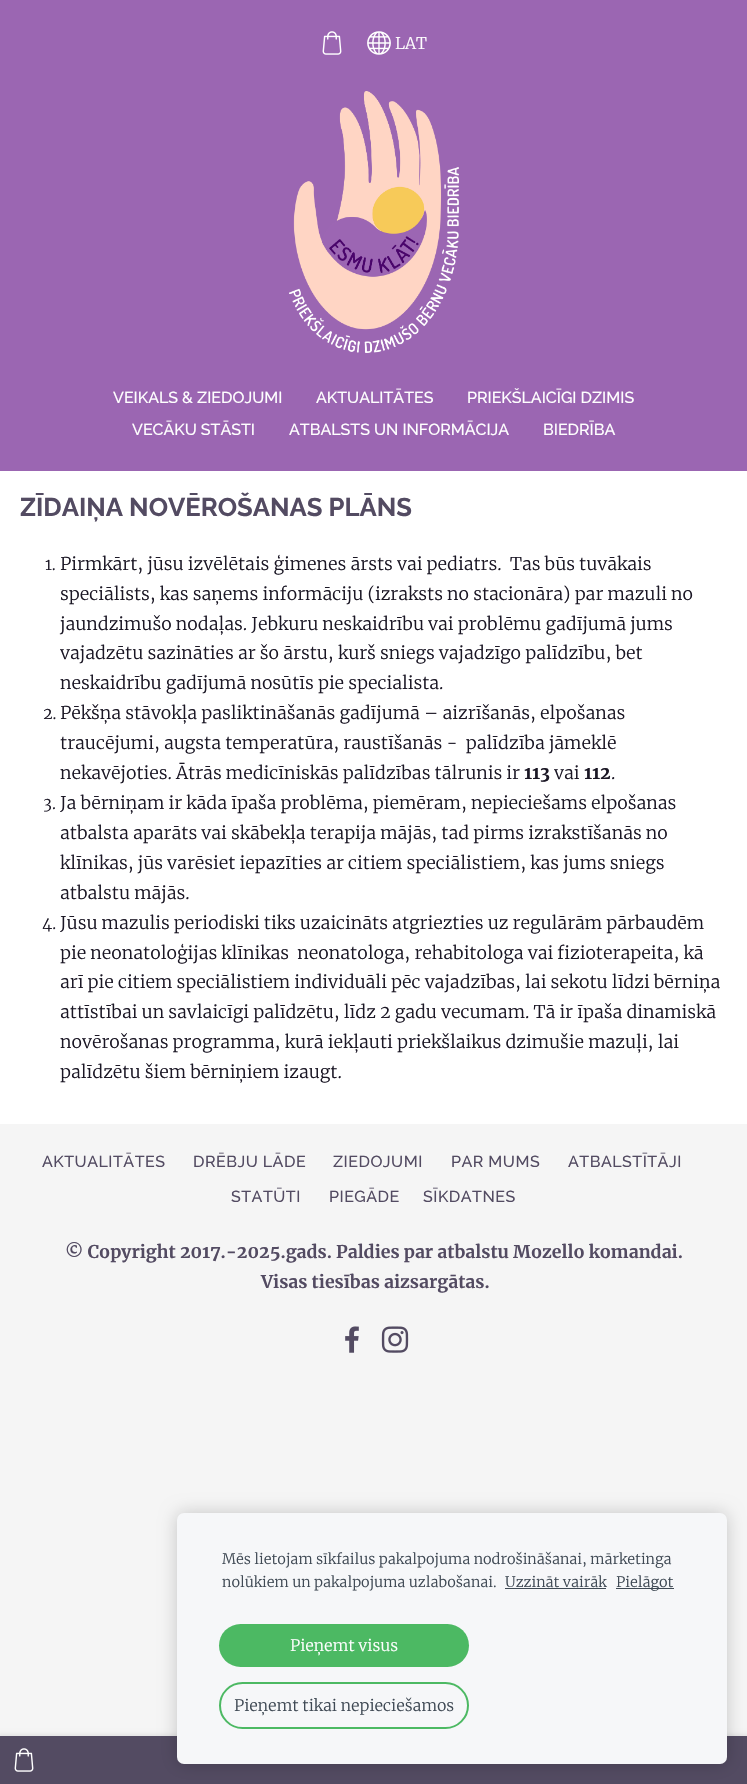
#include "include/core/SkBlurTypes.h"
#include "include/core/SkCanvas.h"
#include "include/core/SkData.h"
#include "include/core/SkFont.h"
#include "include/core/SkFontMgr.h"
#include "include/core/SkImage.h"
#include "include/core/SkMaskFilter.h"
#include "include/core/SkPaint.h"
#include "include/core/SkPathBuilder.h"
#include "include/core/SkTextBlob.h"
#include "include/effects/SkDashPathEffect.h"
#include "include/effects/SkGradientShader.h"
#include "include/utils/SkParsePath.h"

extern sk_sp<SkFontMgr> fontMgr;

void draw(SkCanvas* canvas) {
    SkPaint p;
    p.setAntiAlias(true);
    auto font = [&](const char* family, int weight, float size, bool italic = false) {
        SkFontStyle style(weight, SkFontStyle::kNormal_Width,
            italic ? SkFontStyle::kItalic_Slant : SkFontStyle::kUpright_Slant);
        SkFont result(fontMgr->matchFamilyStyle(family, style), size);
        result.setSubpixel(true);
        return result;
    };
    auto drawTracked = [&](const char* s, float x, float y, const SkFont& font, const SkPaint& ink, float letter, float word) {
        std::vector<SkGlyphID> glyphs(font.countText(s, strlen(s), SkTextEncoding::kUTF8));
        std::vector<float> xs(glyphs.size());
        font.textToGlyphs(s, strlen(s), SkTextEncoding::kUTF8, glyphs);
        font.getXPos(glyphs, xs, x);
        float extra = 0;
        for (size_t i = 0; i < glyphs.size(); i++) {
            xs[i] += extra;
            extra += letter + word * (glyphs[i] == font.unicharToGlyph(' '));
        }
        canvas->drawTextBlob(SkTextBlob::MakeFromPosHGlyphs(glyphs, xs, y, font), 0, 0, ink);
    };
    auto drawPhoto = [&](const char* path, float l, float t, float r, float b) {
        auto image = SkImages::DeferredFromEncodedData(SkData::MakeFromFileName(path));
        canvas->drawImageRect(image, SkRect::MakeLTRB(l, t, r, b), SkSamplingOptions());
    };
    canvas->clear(0xFFF5F5F5);
    p.setColor(0xFFFFFFFF);
    canvas->drawRect(SkRect::MakeLTRB(0, 471, 747, 1124), p);
    p.setColor(0xFF9B66B2);
    canvas->drawRect(SkRect::MakeLTRB(0, 0, 747, 471), p);
    drawPhoto("media/1.png", 322, 31, 342, 55);
    drawPhoto("media/2.png", 367, 31, 391, 55);
    auto font1 = font("Merriweather", 300, 16);
    p.setColor(0xFFFFFFFF);
    canvas->drawString("LAT", 395, 49, font1, p);
    drawPhoto("media/3.png", 289, 91, 459, 353);
    auto font2 = font("Raleway", 500, 16);
    {
        const struct { const char* s; float x, y; } items[] = {
            {"VEIKALS & ZIEDOJUMI", 113, 403},
            {"AKTUALITĀTES", 316, 403},
            {"PRIEKŠLAICĪGI DZIMIS", 467, 403},
            {"VECĀKU STĀSTI", 132, 435},
            {"ATBALSTS UN INFORMĀCIJA", 289, 435},
            {"BIEDRĪBA", 543, 435},
        };
        for (auto [s, x, y] : items) {
            canvas->drawString(s, x, y, font2, p);
        }
    }
    auto font3 = font("Raleway", 700, 25.6f);
    p.setColor(0xFF534B62);
    canvas->drawString("ZĪDAIŅA NOVĒROŠANAS PLĀNS", 20, 516, font3, p);
    p.setColor(0xFF1B1725);
    canvas->drawString("1.", 45, 570, font1, p);
    auto font4 = font("Merriweather", 300, 17.6f);
    {
        const struct { const char* s; float x, y; } items[] = {
            {"Pirmkārt, jūsu izvēlētais ģimenes ārsts vai pediatrs.  Tas būs tuvākais", 60, 570},
            {"speciālists, kas saņems informāciju (izraksts no stacionāra) par mazuli no", 60, 600},
            {"jaundzimušo nodaļas. Jebkuru neskaidrību vai problēmu gadījumā jums", 60, 630},
            {"vajadzētu sazināties ar šo ārstu, kurš sniegs vajadzīgo palīdzību, bet", 60, 659},
            {"neskaidrību gadījumā nosūtīs pie specialista.", 60, 689},
        };
        for (auto [s, x, y] : items) {
            canvas->drawString(s, x, y, font4, p);
        }
    }
    canvas->drawString("2.", 43, 719, font1, p);
    {
        const struct { const char* s; float x, y; } items[] = {
            {"Pēkšņa stāvokļa pasliktināšanās gadījumā – aizrīšanās, elpošanas", 60, 719},
            {"traucējumi, augsta temperatūra, raustīšanās -  palīdzība jāmeklē", 60, 749},
            {"nekavējoties. Ātrās medicīniskās palīdzības tālrunis ir", 60, 779},
        };
        for (auto [s, x, y] : items) {
            canvas->drawString(s, x, y, font4, p);
        }
    }
    auto font5 = font("Merriweather", 700, 17.6f);
    canvas->drawString("113", 524, 779, font5, p);
    canvas->drawString("vai", 554, 779, font4, p);
    canvas->drawString("112", 584, 779, font5, p);
    canvas->drawString(".", 611, 779, font4, p);
    canvas->drawString("3.", 43, 809, font1, p);
    {
        const struct { const char* s; float x, y; } items[] = {
            {"Ja bērniņam ir kāda īpaša problēma, piemēram, nepieciešams elpošanas", 60, 809},
            {"atbalsta aparāts vai skābekļa terapija mājās, tad pirms izrakstīšanās no", 60, 839},
            {"klīnikas, jūs varēsiet iepazīties ar citiem speciālistiem, kas jums sniegs", 60, 869},
            {"atbalstu mājās.", 60, 899},
        };
        for (auto [s, x, y] : items) {
            canvas->drawString(s, x, y, font4, p);
        }
    }
    canvas->drawString("4.", 42, 929, font1, p);
    {
        const struct { const char* s; float x, y; } items[] = {
            {"Jūsu mazulis periodiski tiks uzaicināts atgriezties uz regulārām pārbaudēm", 60, 929},
            {"pie neonatoloģijas klīnikas  neonatologa, rehabitologa vai fizioterapeita, kā", 60, 959},
            {"arī pie citiem speciālistiem individuāli pēc vajadzības, lai sekotu līdzi bērniņa", 60, 988},
            {"attīstībai un savlaicīgi palīdzētu, līdz 2 gadu vecumam. Tā ir īpaša dinamiskā", 60, 1018},
            {"novērošanas programma, kurā iekļauti priekšlaikus dzimušie mazuļi, lai", 60, 1048},
            {"palīdzētu šiem bērniņiem izaugt.", 60, 1078},
        };
        for (auto [s, x, y] : items) {
            canvas->drawString(s, x, y, font4, p);
        }
    }
    p.setColor(0x1A000000);
    p.setMaskFilter(SkMaskFilter::MakeBlur(kNormal_SkBlurStyle, 2.5f));
    canvas->drawRect(SkRect::MakeLTRB(-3, 1735, 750, 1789), p);
    p.setMaskFilter(nullptr);
    p.setColor(0xFF534B62);
    canvas->drawRect(SkRect::MakeLTRB(0, 1736, 747, 1784), p);
    drawPhoto("media/4.png", 14, 1748, 34, 1772);
    {
        const struct { const char* s; float x, y; } items[] = {
            {"AKTUALITĀTES", 42, 1167},
            {"DRĒBJU LĀDE", 193, 1167},
            {"ZIEDOJUMI", 333, 1167},
            {"PAR MUMS", 451, 1167},
            {"ATBALSTĪTĀJI", 568, 1167},
            {"STATŪTI", 231, 1202},
            {"PIEGĀDE", 329, 1202},
            {"SĪKDATNES", 423, 1202},
        };
        for (auto [s, x, y] : items) {
            drawTracked(s, x, y, font2, p, 0.5f, 0);
        }
    }
    canvas->drawString("© Copyright 2017.-2025.gads. Paldies par atbalstu Mozello komandai.", 65, 1258, font5, p);
    canvas->drawString("Visas tiesības aizsargātas.", 261, 1288, font5, p);
    drawPhoto("media/5.png", 345, 1326, 359, 1353);
    drawPhoto("media/6.png", 381, 1326, 409, 1353);
    p.setColor(0x33000000);
    p.setMaskFilter(SkMaskFilter::MakeBlur(kNormal_SkBlurStyle, 8.5f));
    canvas->drawRoundRect(SkRect::MakeLTRB(177, 1513, 727, 1764), 7, 7, p);
    p.setMaskFilter(nullptr);
    p.setColor(0xFFF6F7F9);
    canvas->drawRoundRect(SkRect::MakeLTRB(177, 1513, 727, 1764), 7, 7, p);
    auto font6 = font("Merriweather", 300, 14.4f);
    p.setColor(0xFF3F4954);
    {
        const struct { const char* s; float x, y; } items[] = {
            {"Mēs lietojam sīkfailus pakalpojuma nodrošināšanai, mārketinga", 222, 1564},
            {"nolūkiem un pakalpojuma uzlabošanai.", 222, 1587},
            {"Uzzināt vairāk", 505, 1587},
        };
        for (auto [s, x, y] : items) {
            canvas->drawString(s, x, y, font6, p);
        }
    }
    canvas->drawRect(SkRect::MakeLTRB(505, 1588, 606, 1589), p);
    canvas->drawRect(SkRect::MakeLTRB(616, 1588, 674, 1589), p);
    canvas->drawString("Pielāgot", 616, 1587, font6, p);
    p.setColor(0xFF4CB963);
    canvas->drawRoundRect(SkRect::MakeLTRB(219, 1624, 469, 1667), 21.5f, 21.5f, p);
    auto font7 = font("Merriweather", 300, 15.8f);
    p.setColor(0xFFFFFFFF);
    canvas->drawString("Pieņemt visus", 290, 1651, font7, p);
    p.setStyle(SkPaint::kStroke_Style);
    p.setStrokeWidth(2);
    p.setColor(0xFF4CB963);
    canvas->drawRoundRect(SkRect::MakeLTRB(220, 1683, 468, 1728), 22.5f, 22.5f, p);
    p.setStyle(SkPaint::kFill_Style);
    p.setColor(0xFF3F4954);
    canvas->drawString("Pieņemt tikai nepieciešamos", 234, 1711, font7, p);
}
